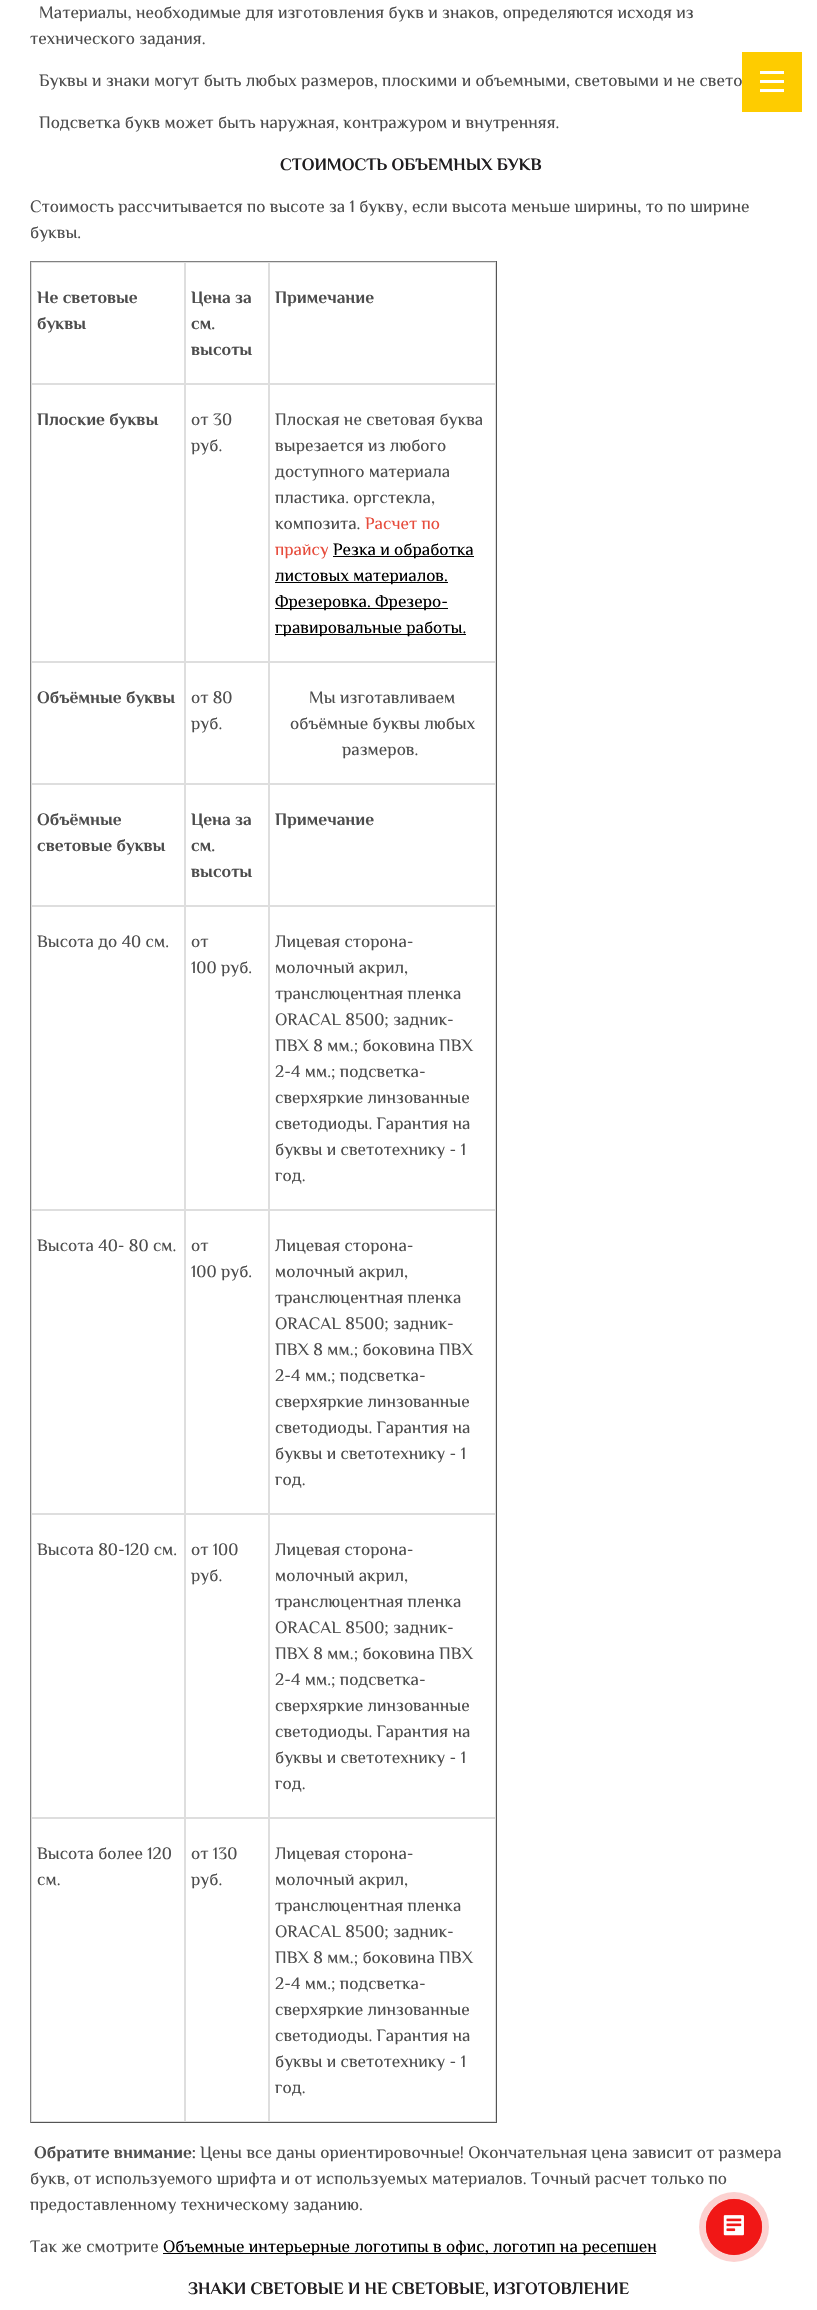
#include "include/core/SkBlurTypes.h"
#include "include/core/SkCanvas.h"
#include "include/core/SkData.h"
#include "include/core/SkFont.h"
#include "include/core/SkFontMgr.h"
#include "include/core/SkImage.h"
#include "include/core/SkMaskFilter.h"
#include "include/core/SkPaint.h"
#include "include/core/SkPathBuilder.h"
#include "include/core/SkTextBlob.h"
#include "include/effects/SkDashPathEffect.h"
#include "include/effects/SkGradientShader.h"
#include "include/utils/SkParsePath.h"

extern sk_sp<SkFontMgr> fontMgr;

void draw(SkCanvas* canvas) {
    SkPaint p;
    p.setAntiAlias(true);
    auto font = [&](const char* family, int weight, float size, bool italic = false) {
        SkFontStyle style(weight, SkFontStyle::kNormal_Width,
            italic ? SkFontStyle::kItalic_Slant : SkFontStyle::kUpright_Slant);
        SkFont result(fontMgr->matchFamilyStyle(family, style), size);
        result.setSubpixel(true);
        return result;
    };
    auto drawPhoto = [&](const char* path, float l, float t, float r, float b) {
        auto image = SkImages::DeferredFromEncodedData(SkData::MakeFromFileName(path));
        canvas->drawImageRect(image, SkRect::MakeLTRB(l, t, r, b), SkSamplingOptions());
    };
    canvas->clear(0xFFFFFFFF);
    auto font1 = font("Philosopher", 400, 17.35f);
    p.setColor(0xFF4D4D4D);
    {
        const struct { const char* s; float x, y; } items[] = {
            {"Материалы, необходимые для изготовления букв и знаков, определяются исходя из", 39, 18},
            {"технического задания.", 30, 44},
            {"Буквы и знаки могут быть любых размеров, плоскими и объемными, световыми и не свето", 39, 86},
            {"Подсветка букв может быть наружная, контражуром и внутренняя.", 39, 128},
        };
        for (auto [s, x, y] : items) {
            canvas->drawString(s, x, y, font1, p);
        }
    }
    auto font2 = font("Philosopher", 700, 17.35f);
    p.setColor(0xFF1F1D1F);
    canvas->drawString("СТОИМОСТЬ ОБЪЕМНЫХ БУКВ", 280, 170, font2, p);
    p.setColor(0xFF4D4D4D);
    canvas->drawString("Стоимость рассчитывается по высоте за 1 букву, если высота меньше ширины, то по ширине", 30, 212, font1, p);
    canvas->drawString("буквы.", 30, 238, font1, p);
    {
        const struct { float l, t, r, b; SkColor color; } items[] = {
            {30, 261, 497, 262, 0xFF808080},
            {496, 261, 497, 2123, 0xFF555555},
            {30, 2122, 497, 2123, 0xFF555555},
            {30, 261, 31, 2123, 0xFF808080},
        };
        for (auto [l, t, r, b, color] : items) {
            p.setColor(color);
            canvas->drawRect(SkRect::MakeLTRB(l, t, r, b), p);
        }
    }
    p.setStyle(SkPaint::kStroke_Style);
    p.setStrokeWidth(1);
    p.setColor(0xFFDEDEDE);
    canvas->drawRect(SkRect::MakeLTRB(31.5f, 262.5f, 184.5f, 383.5f), p);
    p.setStyle(SkPaint::kFill_Style);
    p.setColor(0xFF4D4D4D);
    canvas->drawString("Не световые", 37, 303, font2, p);
    canvas->drawString("буквы", 37, 329, font2, p);
    p.setStyle(SkPaint::kStroke_Style);
    p.setColor(0xFFDEDEDE);
    canvas->drawRect(SkRect::MakeLTRB(185.5f, 262.5f, 268.5f, 383.5f), p);
    p.setStyle(SkPaint::kFill_Style);
    p.setColor(0xFF4D4D4D);
    {
        const struct { const char* s; float x, y; } items[] = {
            {"Цена за", 191, 303},
            {"см.", 191, 329},
            {"высоты", 191, 355},
        };
        for (auto [s, x, y] : items) {
            canvas->drawString(s, x, y, font2, p);
        }
    }
    p.setStyle(SkPaint::kStroke_Style);
    p.setColor(0xFFDEDEDE);
    canvas->drawRect(SkRect::MakeLTRB(269.5f, 262.5f, 495.5f, 383.5f), p);
    p.setStyle(SkPaint::kFill_Style);
    p.setColor(0xFF4D4D4D);
    canvas->drawString("Примечание", 275, 303, font2, p);
    p.setStyle(SkPaint::kStroke_Style);
    p.setColor(0xFFDEDEDE);
    canvas->drawRect(SkRect::MakeLTRB(31.5f, 384.5f, 184.5f, 661.5f), p);
    p.setStyle(SkPaint::kFill_Style);
    p.setColor(0xFF4D4D4D);
    canvas->drawString("Плоские буквы", 37, 425, font2, p);
    p.setStyle(SkPaint::kStroke_Style);
    p.setColor(0xFFDEDEDE);
    canvas->drawRect(SkRect::MakeLTRB(185.5f, 384.5f, 268.5f, 661.5f), p);
    p.setStyle(SkPaint::kFill_Style);
    p.setColor(0xFF4D4D4D);
    canvas->drawString("от 30", 191, 425, font1, p);
    canvas->drawString("руб.", 191, 451, font1, p);
    p.setStyle(SkPaint::kStroke_Style);
    p.setColor(0xFFDEDEDE);
    canvas->drawRect(SkRect::MakeLTRB(269.5f, 384.5f, 495.5f, 661.5f), p);
    p.setStyle(SkPaint::kFill_Style);
    p.setColor(0xFF4D4D4D);
    {
        const struct { const char* s; float x, y; } items[] = {
            {"Плоская не световая буква", 275, 425},
            {"вырезается из любого", 275, 451},
            {"доступного материала", 275, 477},
            {"пластика. оргстекла,", 275, 503},
            {"композита.", 275, 529},
        };
        for (auto [s, x, y] : items) {
            canvas->drawString(s, x, y, font1, p);
        }
    }
    p.setColor(0xFFE74C3C);
    canvas->drawString("Расчет по", 365, 529, font1, p);
    canvas->drawString("прайсу", 275, 555, font1, p);
    p.setColor(0xFF000000);
    canvas->drawRect(SkRect::MakeLTRB(333, 556, 474, 557), p);
    canvas->drawString("Резка и обработка", 333, 555, font1, p);
    canvas->drawRect(SkRect::MakeLTRB(275, 582, 448, 583), p);
    canvas->drawString("листовых материалов.", 275, 581, font1, p);
    canvas->drawRect(SkRect::MakeLTRB(275, 608, 448, 609), p);
    canvas->drawString("Фрезеровка. Фрезеро-", 275, 607, font1, p);
    canvas->drawRect(SkRect::MakeLTRB(275, 634, 466, 635), p);
    canvas->drawString("гравировальные работы.", 275, 633, font1, p);
    p.setStyle(SkPaint::kStroke_Style);
    p.setColor(0xFFDEDEDE);
    canvas->drawRect(SkRect::MakeLTRB(31.5f, 662.5f, 184.5f, 783.5f), p);
    p.setStyle(SkPaint::kFill_Style);
    p.setColor(0xFF4D4D4D);
    canvas->drawString("Объёмные буквы", 37, 703, font2, p);
    p.setStyle(SkPaint::kStroke_Style);
    p.setColor(0xFFDEDEDE);
    canvas->drawRect(SkRect::MakeLTRB(185.5f, 662.5f, 268.5f, 783.5f), p);
    p.setStyle(SkPaint::kFill_Style);
    p.setColor(0xFF4D4D4D);
    canvas->drawString("от 80", 191, 703, font1, p);
    canvas->drawString("руб.", 191, 729, font1, p);
    p.setStyle(SkPaint::kStroke_Style);
    p.setColor(0xFFDEDEDE);
    canvas->drawRect(SkRect::MakeLTRB(269.5f, 662.5f, 495.5f, 783.5f), p);
    p.setStyle(SkPaint::kFill_Style);
    p.setColor(0xFF4D4D4D);
    {
        const struct { const char* s; float x, y; } items[] = {
            {"Мы изготавливаем", 309, 703},
            {"объёмные буквы любых", 290, 729},
            {"размеров.", 342, 755},
        };
        for (auto [s, x, y] : items) {
            canvas->drawString(s, x, y, font1, p);
        }
    }
    p.setStyle(SkPaint::kStroke_Style);
    p.setColor(0xFFDEDEDE);
    canvas->drawRect(SkRect::MakeLTRB(31.5f, 784.5f, 184.5f, 905.5f), p);
    p.setStyle(SkPaint::kFill_Style);
    p.setColor(0xFF4D4D4D);
    canvas->drawString("Объёмные", 37, 825, font2, p);
    canvas->drawString("световые буквы", 37, 851, font2, p);
    p.setStyle(SkPaint::kStroke_Style);
    p.setColor(0xFFDEDEDE);
    canvas->drawRect(SkRect::MakeLTRB(185.5f, 784.5f, 268.5f, 905.5f), p);
    p.setStyle(SkPaint::kFill_Style);
    p.setColor(0xFF4D4D4D);
    {
        const struct { const char* s; float x, y; } items[] = {
            {"Цена за", 191, 825},
            {"см.", 191, 851},
            {"высоты", 191, 877},
        };
        for (auto [s, x, y] : items) {
            canvas->drawString(s, x, y, font2, p);
        }
    }
    p.setStyle(SkPaint::kStroke_Style);
    p.setColor(0xFFDEDEDE);
    canvas->drawRect(SkRect::MakeLTRB(269.5f, 784.5f, 495.5f, 905.5f), p);
    p.setStyle(SkPaint::kFill_Style);
    p.setColor(0xFF4D4D4D);
    canvas->drawString("Примечание", 275, 825, font2, p);
    p.setStyle(SkPaint::kStroke_Style);
    p.setColor(0xFFDEDEDE);
    canvas->drawRect(SkRect::MakeLTRB(31.5f, 906.5f, 184.5f, 1209.5f), p);
    p.setStyle(SkPaint::kFill_Style);
    p.setColor(0xFF4D4D4D);
    canvas->drawString("Высота до 40 см.", 37, 947, font1, p);
    p.setStyle(SkPaint::kStroke_Style);
    p.setColor(0xFFDEDEDE);
    canvas->drawRect(SkRect::MakeLTRB(185.5f, 906.5f, 268.5f, 1209.5f), p);
    p.setStyle(SkPaint::kFill_Style);
    p.setColor(0xFF4D4D4D);
    canvas->drawString("от", 191, 947, font1, p);
    canvas->drawString("100 руб.", 191, 973, font1, p);
    p.setStyle(SkPaint::kStroke_Style);
    p.setColor(0xFFDEDEDE);
    canvas->drawRect(SkRect::MakeLTRB(269.5f, 906.5f, 495.5f, 1209.5f), p);
    p.setStyle(SkPaint::kFill_Style);
    p.setColor(0xFF4D4D4D);
    {
        const struct { const char* s; float x, y; } items[] = {
            {"Лицевая сторона-", 275, 947},
            {"молочный акрил,", 275, 973},
            {"транслюцентная пленка", 275, 999},
            {"ORACAL 8500; задник-", 275, 1025},
            {"ПВХ 8 мм.; боковина ПВХ", 275, 1051},
            {"2-4 мм.; подсветка-", 275, 1077},
            {"сверхяркие линзованные", 275, 1103},
            {"светодиоды. Гарантия на", 275, 1129},
            {"буквы и светотехнику - 1", 275, 1155},
            {"год.", 275, 1181},
        };
        for (auto [s, x, y] : items) {
            canvas->drawString(s, x, y, font1, p);
        }
    }
    p.setStyle(SkPaint::kStroke_Style);
    p.setColor(0xFFDEDEDE);
    canvas->drawRect(SkRect::MakeLTRB(31.5f, 1210.5f, 184.5f, 1513.5f), p);
    p.setStyle(SkPaint::kFill_Style);
    p.setColor(0xFF4D4D4D);
    canvas->drawString("Высота 40- 80 см.", 37, 1251, font1, p);
    p.setStyle(SkPaint::kStroke_Style);
    p.setColor(0xFFDEDEDE);
    canvas->drawRect(SkRect::MakeLTRB(185.5f, 1210.5f, 268.5f, 1513.5f), p);
    p.setStyle(SkPaint::kFill_Style);
    p.setColor(0xFF4D4D4D);
    canvas->drawString("от", 191, 1251, font1, p);
    canvas->drawString("100 руб.", 191, 1277, font1, p);
    p.setStyle(SkPaint::kStroke_Style);
    p.setColor(0xFFDEDEDE);
    canvas->drawRect(SkRect::MakeLTRB(269.5f, 1210.5f, 495.5f, 1513.5f), p);
    p.setStyle(SkPaint::kFill_Style);
    p.setColor(0xFF4D4D4D);
    {
        const struct { const char* s; float x, y; } items[] = {
            {"Лицевая сторона-", 275, 1251},
            {"молочный акрил,", 275, 1277},
            {"транслюцентная пленка", 275, 1303},
            {"ORACAL 8500; задник-", 275, 1329},
            {"ПВХ 8 мм.; боковина ПВХ", 275, 1355},
            {"2-4 мм.; подсветка-", 275, 1381},
            {"сверхяркие линзованные", 275, 1407},
            {"светодиоды. Гарантия на", 275, 1433},
            {"буквы и светотехнику - 1", 275, 1459},
            {"год.", 275, 1485},
        };
        for (auto [s, x, y] : items) {
            canvas->drawString(s, x, y, font1, p);
        }
    }
    p.setStyle(SkPaint::kStroke_Style);
    p.setColor(0xFFDEDEDE);
    canvas->drawRect(SkRect::MakeLTRB(31.5f, 1514.5f, 184.5f, 1817.5f), p);
    p.setStyle(SkPaint::kFill_Style);
    p.setColor(0xFF4D4D4D);
    canvas->drawString("Высота 80-120 см.", 37, 1555, font1, p);
    p.setStyle(SkPaint::kStroke_Style);
    p.setColor(0xFFDEDEDE);
    canvas->drawRect(SkRect::MakeLTRB(185.5f, 1514.5f, 268.5f, 1817.5f), p);
    p.setStyle(SkPaint::kFill_Style);
    p.setColor(0xFF4D4D4D);
    canvas->drawString("от 100", 191, 1555, font1, p);
    canvas->drawString("руб.", 191, 1581, font1, p);
    p.setStyle(SkPaint::kStroke_Style);
    p.setColor(0xFFDEDEDE);
    canvas->drawRect(SkRect::MakeLTRB(269.5f, 1514.5f, 495.5f, 1817.5f), p);
    p.setStyle(SkPaint::kFill_Style);
    p.setColor(0xFF4D4D4D);
    {
        const struct { const char* s; float x, y; } items[] = {
            {"Лицевая сторона-", 275, 1555},
            {"молочный акрил,", 275, 1581},
            {"транслюцентная пленка", 275, 1607},
            {"ORACAL 8500; задник-", 275, 1633},
            {"ПВХ 8 мм.; боковина ПВХ", 275, 1659},
            {"2-4 мм.; подсветка-", 275, 1685},
            {"сверхяркие линзованные", 275, 1711},
            {"светодиоды. Гарантия на", 275, 1737},
            {"буквы и светотехнику - 1", 275, 1763},
            {"год.", 275, 1789},
        };
        for (auto [s, x, y] : items) {
            canvas->drawString(s, x, y, font1, p);
        }
    }
    p.setStyle(SkPaint::kStroke_Style);
    p.setColor(0xFFDEDEDE);
    canvas->drawRect(SkRect::MakeLTRB(31.5f, 1818.5f, 184.5f, 2121.5f), p);
    p.setStyle(SkPaint::kFill_Style);
    p.setColor(0xFF4D4D4D);
    canvas->drawString("Высота более 120", 37, 1859, font1, p);
    canvas->drawString("см.", 37, 1885, font1, p);
    p.setStyle(SkPaint::kStroke_Style);
    p.setColor(0xFFDEDEDE);
    canvas->drawRect(SkRect::MakeLTRB(185.5f, 1818.5f, 268.5f, 2121.5f), p);
    p.setStyle(SkPaint::kFill_Style);
    p.setColor(0xFF4D4D4D);
    canvas->drawString("от 130", 191, 1859, font1, p);
    canvas->drawString("руб.", 191, 1885, font1, p);
    p.setStyle(SkPaint::kStroke_Style);
    p.setColor(0xFFDEDEDE);
    canvas->drawRect(SkRect::MakeLTRB(269.5f, 1818.5f, 495.5f, 2121.5f), p);
    p.setStyle(SkPaint::kFill_Style);
    p.setColor(0xFF4D4D4D);
    {
        const struct { const char* s; float x, y; } items[] = {
            {"Лицевая сторона-", 275, 1859},
            {"молочный акрил,", 275, 1885},
            {"транслюцентная пленка", 275, 1911},
            {"ORACAL 8500; задник-", 275, 1937},
            {"ПВХ 8 мм.; боковина ПВХ", 275, 1963},
            {"2-4 мм.; подсветка-", 275, 1989},
            {"сверхяркие линзованные", 275, 2015},
            {"светодиоды. Гарантия на", 275, 2041},
            {"буквы и светотехнику - 1", 275, 2067},
            {"год.", 275, 2093},
        };
        for (auto [s, x, y] : items) {
            canvas->drawString(s, x, y, font1, p);
        }
    }
    canvas->drawString("Обратите внимание:", 34, 2158, font2, p);
    {
        const struct { const char* s; float x, y; } items[] = {
            {"Цены все даны ориентировочные! Окончательная цена зависит от размера", 200, 2158},
            {"букв, от используемого шрифта и от используемых материалов. Точный расчет только по", 30, 2184},
            {"предоставленному техническому заданию.", 30, 2210},
            {"Так же смотрите", 30, 2252},
        };
        for (auto [s, x, y] : items) {
            canvas->drawString(s, x, y, font1, p);
        }
    }
    p.setColor(0xFF000000);
    canvas->drawRect(SkRect::MakeLTRB(163, 2253, 656, 2254), p);
    canvas->drawString("Объемные интерьерные логотипы в офис, логотип на ресепшен", 163, 2252, font1, p);
    p.setColor(0xFF1F1D1F);
    canvas->drawString("ЗНАКИ СВЕТОВЫЕ И НЕ СВЕТОВЫЕ, ИЗГОТОВЛЕНИЕ", 188, 2294, font2, p);
    p.setColor(0xFFFECC00);
    canvas->drawRect(SkRect::MakeLTRB(742, 52, 802, 112), p);
    drawPhoto("media/1.png", 760, 71, 784, 93);
    p.setColor(0xFFFCD1D0);
    canvas->drawCircle(734, 2227, 35, p);
    p.setStyle(SkPaint::kStroke_Style);
    p.setStrokeWidth(0.8f);
    p.setColor(0xFFF11716);
    canvas->drawCircle(734, 2227, 27.6f, p);
    p.setStyle(SkPaint::kFill_Style);
    canvas->drawCircle(734, 2227, 28, p);
    drawPhoto("media/2.png", 723, 2215, 744, 2236);
}
